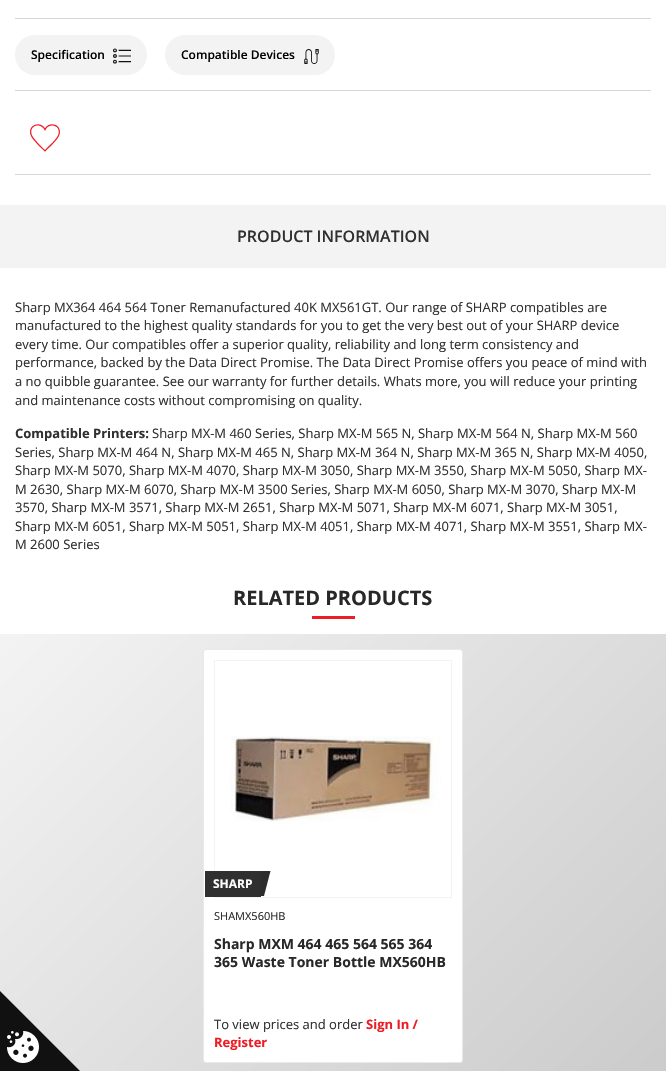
#include "include/core/SkBlurTypes.h"
#include "include/core/SkCanvas.h"
#include "include/core/SkData.h"
#include "include/core/SkFont.h"
#include "include/core/SkFontMgr.h"
#include "include/core/SkImage.h"
#include "include/core/SkMaskFilter.h"
#include "include/core/SkPaint.h"
#include "include/core/SkPathBuilder.h"
#include "include/core/SkTextBlob.h"
#include "include/effects/SkDashPathEffect.h"
#include "include/effects/SkGradientShader.h"
#include "include/utils/SkParsePath.h"

extern sk_sp<SkFontMgr> fontMgr;

void draw(SkCanvas* canvas) {
    SkPaint p;
    p.setAntiAlias(true);
    auto font = [&](const char* family, int weight, float size, bool italic = false) {
        SkFontStyle style(weight, SkFontStyle::kNormal_Width,
            italic ? SkFontStyle::kItalic_Slant : SkFontStyle::kUpright_Slant);
        SkFont result(fontMgr->matchFamilyStyle(family, style), size);
        result.setSubpixel(true);
        return result;
    };
    auto drawPhoto = [&](const char* path, float l, float t, float r, float b) {
        auto image = SkImages::DeferredFromEncodedData(SkData::MakeFromFileName(path));
        canvas->drawImageRect(image, SkRect::MakeLTRB(l, t, r, b), SkSamplingOptions());
    };
    canvas->clear(0xFFFFFFFF);
    p.setColor(0xFFD7D7D7);
    canvas->drawRect(SkRect::MakeLTRB(15, 18, 651, 19), p);
    p.setColor(0xFFF3F3F3);
    canvas->drawRoundRect(SkRect::MakeLTRB(15, 35, 147, 75), 20, 20, p);
    auto font1 = font("Open Sans", 600, 12);
    p.setColor(0xFF000000);
    canvas->drawString("Specification", 31, 59, font1, p);
    drawPhoto("media/1.png", 113, 48, 131, 64);
    p.setColor(0xFFF3F3F3);
    canvas->drawRoundRect(SkRect::MakeLTRB(165, 35, 335, 75), 20, 20, p);
    p.setColor(0xFF000000);
    canvas->drawString("Compatible Devices", 181, 59, font1, p);
    drawPhoto("media/2.png", 304, 49, 319, 64);
    p.setColor(0xFFD7D7D7);
    canvas->drawRect(SkRect::MakeLTRB(15, 90, 651, 91), p);
    canvas->drawRect(SkRect::MakeLTRB(15, 174, 651, 175), p);
    drawPhoto("media/3.png", 30, 124, 60, 152);
    p.setColor(0xFFF3F3F3);
    canvas->drawRect(SkRect::MakeLTRB(0, 205, 666, 268), p);
    auto font2 = font("Open Sans", 600, 16);
    p.setColor(0xFF303030);
    canvas->drawString("PRODUCT INFORMATION", 237, 242, font2, p);
    auto font3 = font("Open Sans", 400, 13);
    {
        const struct { const char* s; float x, y; } items[] = {
            {"Sharp MX364 464 564 Toner Remanufactured 40K MX561GT. Our range of SHARP compatibles are", 15, 312},
            {"manufactured to the highest quality standards for you to get the very best out of your SHARP device", 15, 330},
            {"every time. Our compatibles offer a superior quality, reliability and long term consistency and", 15, 349},
            {"performance, backed by the Data Direct Promise. The Data Direct Promise offers you peace of mind with", 15, 367},
            {"a no quibble guarantee. See our warranty for further details. Whats more, you will reduce your printing", 15, 386},
            {"and maintenance costs without compromising on quality.", 15, 405},
        };
        for (auto [s, x, y] : items) {
            canvas->drawString(s, x, y, font3, p);
        }
    }
    auto font4 = font("Open Sans", 700, 13);
    canvas->drawString("Compatible Printers:", 15, 438, font4, p);
    {
        const struct { const char* s; float x, y; } items[] = {
            {"Sharp MX-M 460 Series, Sharp MX-M 565 N, Sharp MX-M 564 N, Sharp MX-M 560", 152, 438},
            {"Series, Sharp MX-M 464 N, Sharp MX-M 465 N, Sharp MX-M 364 N, Sharp MX-M 365 N, Sharp MX-M 4050,", 15, 457},
            {"Sharp MX-M 5070, Sharp MX-M 4070, Sharp MX-M 3050, Sharp MX-M 3550, Sharp MX-M 5050, Sharp MX-", 15, 475},
            {"M 2630, Sharp MX-M 6070, Sharp MX-M 3500 Series, Sharp MX-M 6050, Sharp MX-M 3070, Sharp MX-M", 15, 494},
            {"3570, Sharp MX-M 3571, Sharp MX-M 2651, Sharp MX-M 5071, Sharp MX-M 6071, Sharp MX-M 3051,", 15, 512},
            {"Sharp MX-M 6051, Sharp MX-M 5051, Sharp MX-M 4051, Sharp MX-M 4071, Sharp MX-M 3551, Sharp MX-", 15, 531},
            {"M 2600 Series", 15, 549},
        };
        for (auto [s, x, y] : items) {
            canvas->drawString(s, x, y, font3, p);
        }
    }
    auto font5 = font("Open Sans", 700, 20);
    p.setColor(0xFF282828);
    canvas->drawString("RELATED PRODUCTS", 233, 605, font5, p);
    p.setColor(0xFFEE1C25);
    canvas->drawRect(SkRect::MakeLTRB(312, 616, 355, 619), p);
    {
        const SkColor colors[] = {0xFFFFFFFF, 0xFFBEBEBE};
        const float stops[] = {0, 1};
        const SkPoint ends[] = {{-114, 430}, {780, 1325}};
        p.setShader(SkGradientShader::MakeLinear(ends, colors, stops, 2, SkTileMode::kClamp));
        p.setAlpha(255);
    }
    canvas->drawRect(SkRect::MakeLTRB(0, 634, 666, 1071), p);
    p.setShader(nullptr);
    p.setColor(0xFFFFFFFF);
    canvas->drawRoundRect(SkRect::MakeLTRB(203.5f, 649.5f, 462.5f, 1062.5f), 2.5f, 2.5f, p);
    p.setStyle(SkPaint::kStroke_Style);
    p.setStrokeWidth(1);
    p.setColor(0xFFE6EAEA);
    canvas->drawRoundRect(SkRect::MakeLTRB(203.5f, 649.5f, 462.5f, 1062.5f), 2.5f, 2.5f, p);
    p.setColor(0xFFF3F3F3);
    canvas->drawRect(SkRect::MakeLTRB(214.5f, 660.5f, 451.5f, 897.5f), p);
    drawPhoto("media/4.png", 230, 736, 441, 824);
    p.setStyle(SkPaint::kFill_Style);
    p.setColor(0xFF303030);
    canvas->drawRect(SkRect::MakeLTRB(205, 871, 261, 897), p);
    auto font6 = font("Open Sans", 700, 12);
    p.setColor(0xFFFFFFFF);
    canvas->drawString("SHARP", 213, 888, font6, p);
    p.setColor(0xFF2C2C2C);
    canvas->drawPath(SkPathBuilder(SkPathFillType::kEvenOdd).moveTo(270.5f, 871).lineTo(264, 896).lineTo(261, 896).lineTo(261, 871).close().detach(), p);
    auto font7 = font("Open Sans", 400, 11);
    p.setColor(0xFF282828);
    canvas->drawString("SHAMX560HB", 214, 920, font7, p);
    auto font8 = font("Open Sans", 700, 14);
    canvas->drawString("Sharp MXM 464 465 564 565 364", 214, 949, font8, p);
    canvas->drawString("365 Waste Toner Bottle MX560HB", 214, 967, font8, p);
    p.setColor(0xFF303030);
    canvas->drawString("To view prices and order", 214, 1029, font3, p);
    p.setColor(0xFFEE1C25);
    canvas->drawString("Sign In /", 366, 1029, font4, p);
    canvas->drawString("Register", 214, 1047, font4, p);
    p.setColor(0xFF111111);
    canvas->drawPath(SkPathBuilder().moveTo(0, 1071).lineTo(0, 991).lineTo(80, 1071).close().detach(), p);
    drawPhoto("media/5.png", 7, 1031, 39, 1063);
}
